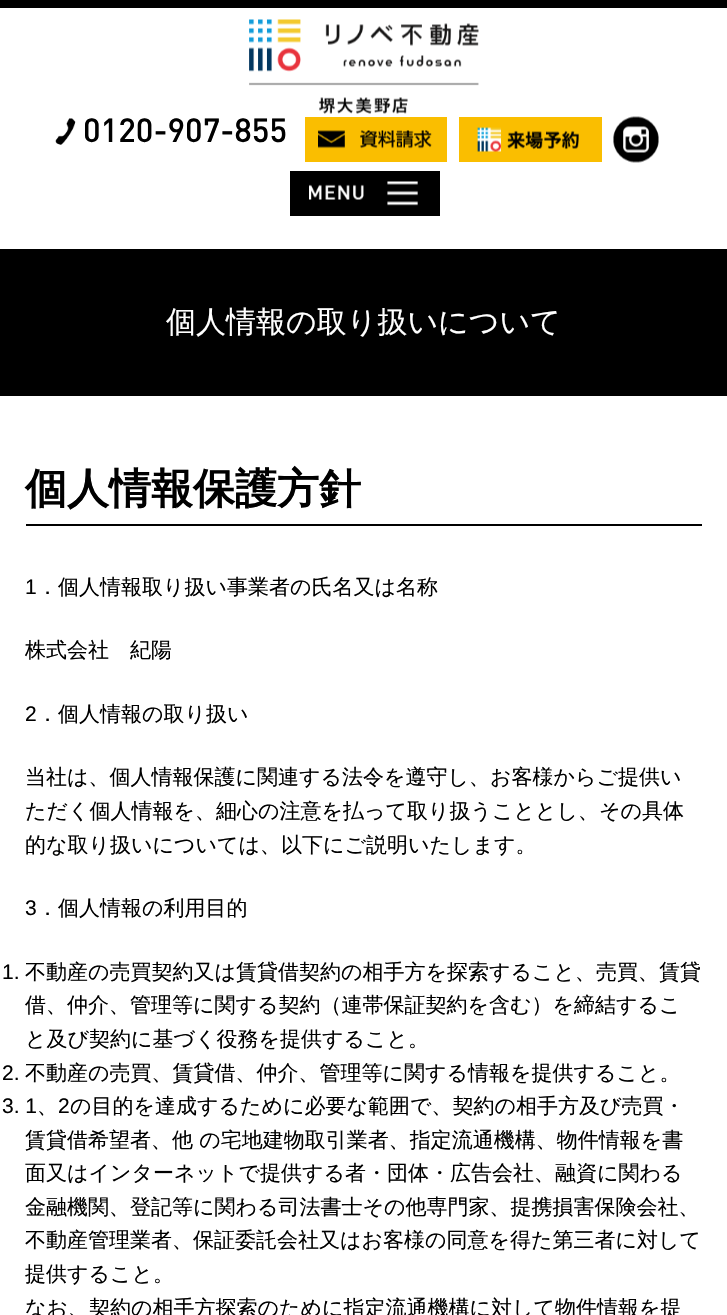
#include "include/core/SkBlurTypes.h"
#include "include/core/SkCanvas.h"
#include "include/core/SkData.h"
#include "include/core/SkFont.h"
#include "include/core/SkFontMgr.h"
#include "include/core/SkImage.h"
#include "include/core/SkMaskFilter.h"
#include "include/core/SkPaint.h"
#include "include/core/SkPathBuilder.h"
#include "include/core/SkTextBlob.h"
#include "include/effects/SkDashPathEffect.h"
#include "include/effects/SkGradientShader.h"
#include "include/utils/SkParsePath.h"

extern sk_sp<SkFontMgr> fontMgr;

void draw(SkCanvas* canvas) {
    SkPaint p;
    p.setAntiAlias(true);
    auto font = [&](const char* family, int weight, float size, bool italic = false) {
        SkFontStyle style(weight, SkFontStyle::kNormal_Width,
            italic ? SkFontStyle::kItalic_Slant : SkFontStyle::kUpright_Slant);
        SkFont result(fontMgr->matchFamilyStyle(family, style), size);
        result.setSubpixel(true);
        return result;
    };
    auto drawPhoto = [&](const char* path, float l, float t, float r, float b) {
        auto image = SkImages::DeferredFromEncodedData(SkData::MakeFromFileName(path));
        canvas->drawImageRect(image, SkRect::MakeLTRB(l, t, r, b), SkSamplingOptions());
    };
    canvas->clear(0xFFFFFFFF);
    p.setColor(0xFF000000);
    canvas->drawRect(SkRect::MakeLTRB(0, 0, 727, 8), p);
    drawPhoto("media/1.png", 249, 19, 479, 114);
    drawPhoto("media/2.png", 55, 118, 76, 145);
    auto font1 = font("DIN", 500, 33);
    canvas->drawString("0120-907-855", 83, 142, font1, p);
    p.setColor(0xFFFABE00);
    canvas->drawRect(SkRect::MakeLTRB(305, 117, 447, 162), p);
    drawPhoto("media/3.png", 318, 130, 432, 149);
    canvas->drawRect(SkRect::MakeLTRB(459, 117, 602, 162), p);
    drawPhoto("media/4.png", 477, 127, 579, 152);
    drawPhoto("media/5.png", 613, 116, 659, 163);
    p.setColor(0xFF000000);
    canvas->drawRect(SkRect::MakeLTRB(290, 171, 440, 216), p);
    drawPhoto("media/6.png", 309, 181, 418, 206);
    canvas->drawRect(SkRect::MakeLTRB(0, 249, 727, 396), p);
    auto font2 = font("WenQuanYi Zen Hei", 500, 30);
    p.setColor(0xFFFFFFFF);
    canvas->drawString("個人情報の取り扱いについて", 166, 332, font2, p);
    p.setColor(0xFF000000);
    canvas->drawRect(SkRect::MakeLTRB(26, 524, 702, 526), p);
    auto font3 = font("WenQuanYi Zen Hei", 700, 42);
    canvas->drawString("個人情報保護方針", 25, 503, font3, p);
    auto font4 = font("Liberation Sans", 400, 21);
    canvas->drawString("1", 25, 594, font4, p);
    auto font5 = font("WenQuanYi Zen Hei", 500, 21);
    canvas->drawString("．個人情報取り扱い事業者の氏名又は名称", 37, 594, font5, p);
    canvas->drawString("株式会社　紀陽", 25, 657, font5, p);
    canvas->drawString("2", 25, 721, font4, p);
    {
        const struct { const char* s; float x, y; } items[] = {
            {"．個人情報の取り扱い", 37, 721},
            {"当社は、個人情報保護に関連する法令を遵守し、お客様からご提供い", 25, 784},
            {"ただく個人情報を、細心の注意を払って取り扱うこととし、その具体", 25, 818},
            {"的な取り扱いについては、以下にご説明いたします。", 25, 852},
        };
        for (auto [s, x, y] : items) {
            canvas->drawString(s, x, y, font5, p);
        }
    }
    canvas->drawString("3", 25, 915, font4, p);
    canvas->drawString("．個人情報の利用目的", 37, 915, font5, p);
    canvas->drawString("1.", 2, 979, font4, p);
    {
        const struct { const char* s; float x, y; } items[] = {
            {"不動産の売買契約又は賃貸借契約の相手方を探索すること、売買、賃貸", 25, 979},
            {"借、仲介、管理等に関する契約（連帯保証契約を含む）を締結するこ", 25, 1012},
            {"と及び契約に基づく役務を提供すること。", 25, 1046},
        };
        for (auto [s, x, y] : items) {
            canvas->drawString(s, x, y, font5, p);
        }
    }
    canvas->drawString("2.", 2, 1080, font4, p);
    canvas->drawString("不動産の売買、賃貸借、仲介、管理等に関する情報を提供すること。", 25, 1080, font5, p);
    canvas->drawString("3. 1", 2, 1113, font4, p);
    canvas->drawString("2", 58, 1113, font4, p);
    {
        const struct { const char* s; float x, y; } items[] = {
            {"の目的を達成するために必要な範囲で、契約の相手方及び売買・", 70, 1113},
            {"、", 37, 1113},
            {"賃貸借希望者、他 の宅地建物取引業者、指定流通機構、物件情報を書", 25, 1147},
            {"面又はインターネットで提供する者・団体・広告会社、融資に関わる", 25, 1180},
            {"金融機関、登記等に関わる司法書士その他専門家、提携損害保険会社、", 25, 1214},
            {"不動産管理業者、保証委託会社又はお客様の同意を得た第三者に対して", 25, 1247},
            {"提供すること。", 25, 1281},
            {"なお、契約の相手方探索のために指定流通機構に対して物件情報を提", 25, 1315},
        };
        for (auto [s, x, y] : items) {
            canvas->drawString(s, x, y, font5, p);
        }
    }
}
